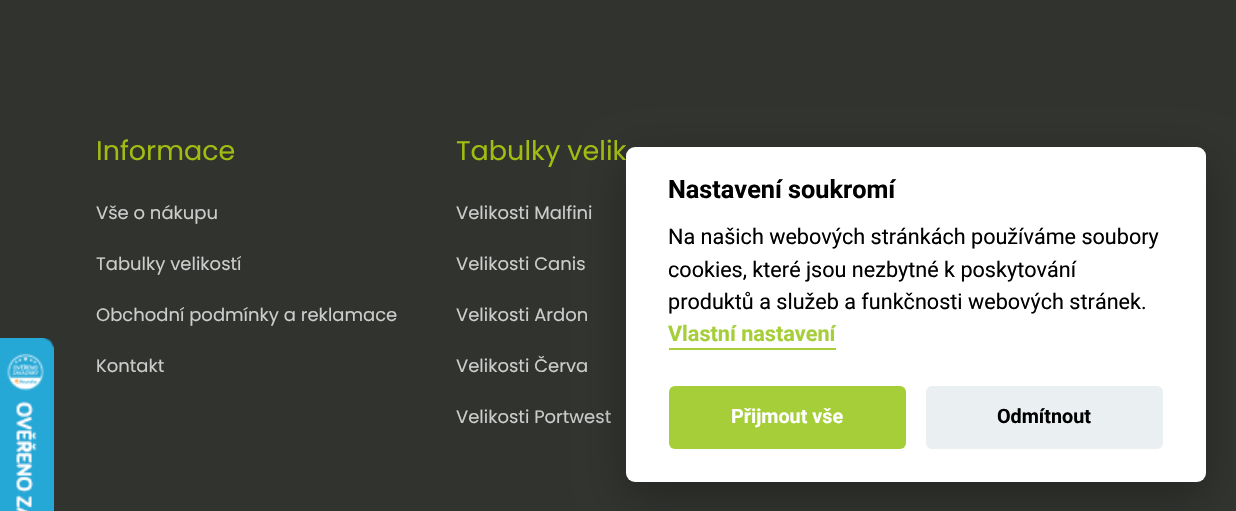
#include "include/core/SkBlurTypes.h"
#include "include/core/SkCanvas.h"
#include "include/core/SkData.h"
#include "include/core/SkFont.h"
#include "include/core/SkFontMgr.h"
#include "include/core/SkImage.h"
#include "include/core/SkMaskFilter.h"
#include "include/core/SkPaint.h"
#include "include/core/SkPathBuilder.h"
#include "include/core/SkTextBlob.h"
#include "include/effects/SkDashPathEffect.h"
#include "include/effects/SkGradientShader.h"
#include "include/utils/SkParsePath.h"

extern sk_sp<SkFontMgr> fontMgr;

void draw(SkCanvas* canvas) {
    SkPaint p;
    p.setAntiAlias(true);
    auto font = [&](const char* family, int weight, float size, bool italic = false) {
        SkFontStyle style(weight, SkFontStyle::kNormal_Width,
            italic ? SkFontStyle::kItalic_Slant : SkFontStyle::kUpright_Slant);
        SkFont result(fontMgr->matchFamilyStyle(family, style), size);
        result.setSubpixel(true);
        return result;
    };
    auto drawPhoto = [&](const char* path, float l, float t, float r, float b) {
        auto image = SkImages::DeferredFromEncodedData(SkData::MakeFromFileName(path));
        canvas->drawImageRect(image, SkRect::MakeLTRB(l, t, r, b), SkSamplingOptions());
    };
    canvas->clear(0xFF30332E);
    drawPhoto("media/1.png", 0, 338, 54, 511);
    auto font1 = font("Poppins", 400, 27);
    p.setColor(0xFFA2BC11);
    canvas->drawString("Informace", 96, 160, font1, p);
    auto font2 = font("Poppins", 400, 18);
    p.setColor(0xFFCCCCCC);
    {
        const struct { const char* s; float x, y; } items[] = {
            {"Vše o nákupu", 96, 219},
            {"Tabulky velikostí", 96, 270},
            {"Obchodní podmínky a reklamace", 96, 321},
            {"Kontakt", 96, 372},
        };
        for (auto [s, x, y] : items) {
            canvas->drawString(s, x, y, font2, p);
        }
    }
    p.setColor(0xFFA2BC11);
    canvas->drawString("Tabulky velik", 456, 160, font1, p);
    p.setColor(0xFFCCCCCC);
    {
        const struct { const char* s; float x, y; } items[] = {
            {"Velikosti Malfini", 456, 219},
            {"Velikosti Canis", 456, 270},
            {"Velikosti Ardon", 456, 321},
            {"Velikosti Červa", 456, 372},
            {"Velikosti Portwest", 456, 423},
        };
        for (auto [s, x, y] : items) {
            canvas->drawString(s, x, y, font2, p);
        }
    }
    p.setColor(0x47020203);
    p.setMaskFilter(SkMaskFilter::MakeBlur(kNormal_SkBlurStyle, 22.5f));
    canvas->drawRoundRect(SkRect::MakeLTRB(626, 162, 1206, 497), 9, 9, p);
    p.setMaskFilter(nullptr);
    p.setColor(0xFFFFFFFF);
    canvas->drawRoundRect(SkRect::MakeLTRB(626, 147, 1206, 482), 9, 9, p);
    auto font3 = font("Roboto", 700, 25.25f);
    p.setColor(0xFF000000);
    canvas->drawString("Nastavení soukromí", 668, 198, font3, p);
    auto font4 = font("Roboto", 400, 21.6f);
    {
        const struct { const char* s; float x, y; } items[] = {
            {"Na našich webových stránkách používáme soubory", 668, 244},
            {"cookies, které jsou nezbytné k poskytování", 668, 277},
            {"produktů a služeb a funkčnosti webových stránek.", 668, 309},
        };
        for (auto [s, x, y] : items) {
            canvas->drawString(s, x, y, font4, p);
        }
    }
    auto font5 = font("Roboto", 700, 21.6f);
    p.setColor(0xFFA6CE39);
    canvas->drawString("Vlastní nastavení", 668, 341, font5, p);
    canvas->drawRect(SkRect::MakeLTRB(669, 348, 836, 350), p);
    canvas->drawRoundRect(SkRect::MakeLTRB(669, 386, 906, 449), 6, 6, p);
    auto font6 = font("Roboto", 700, 19.75f);
    p.setColor(0xFFFFFFFF);
    canvas->drawString("Přijmout vše", 731, 423, font6, p);
    p.setColor(0xFFEAEFF2);
    canvas->drawRoundRect(SkRect::MakeLTRB(926, 386, 1163, 449), 6, 6, p);
    p.setColor(0xFF000000);
    canvas->drawString("Odmítnout", 997, 423, font6, p);
}
